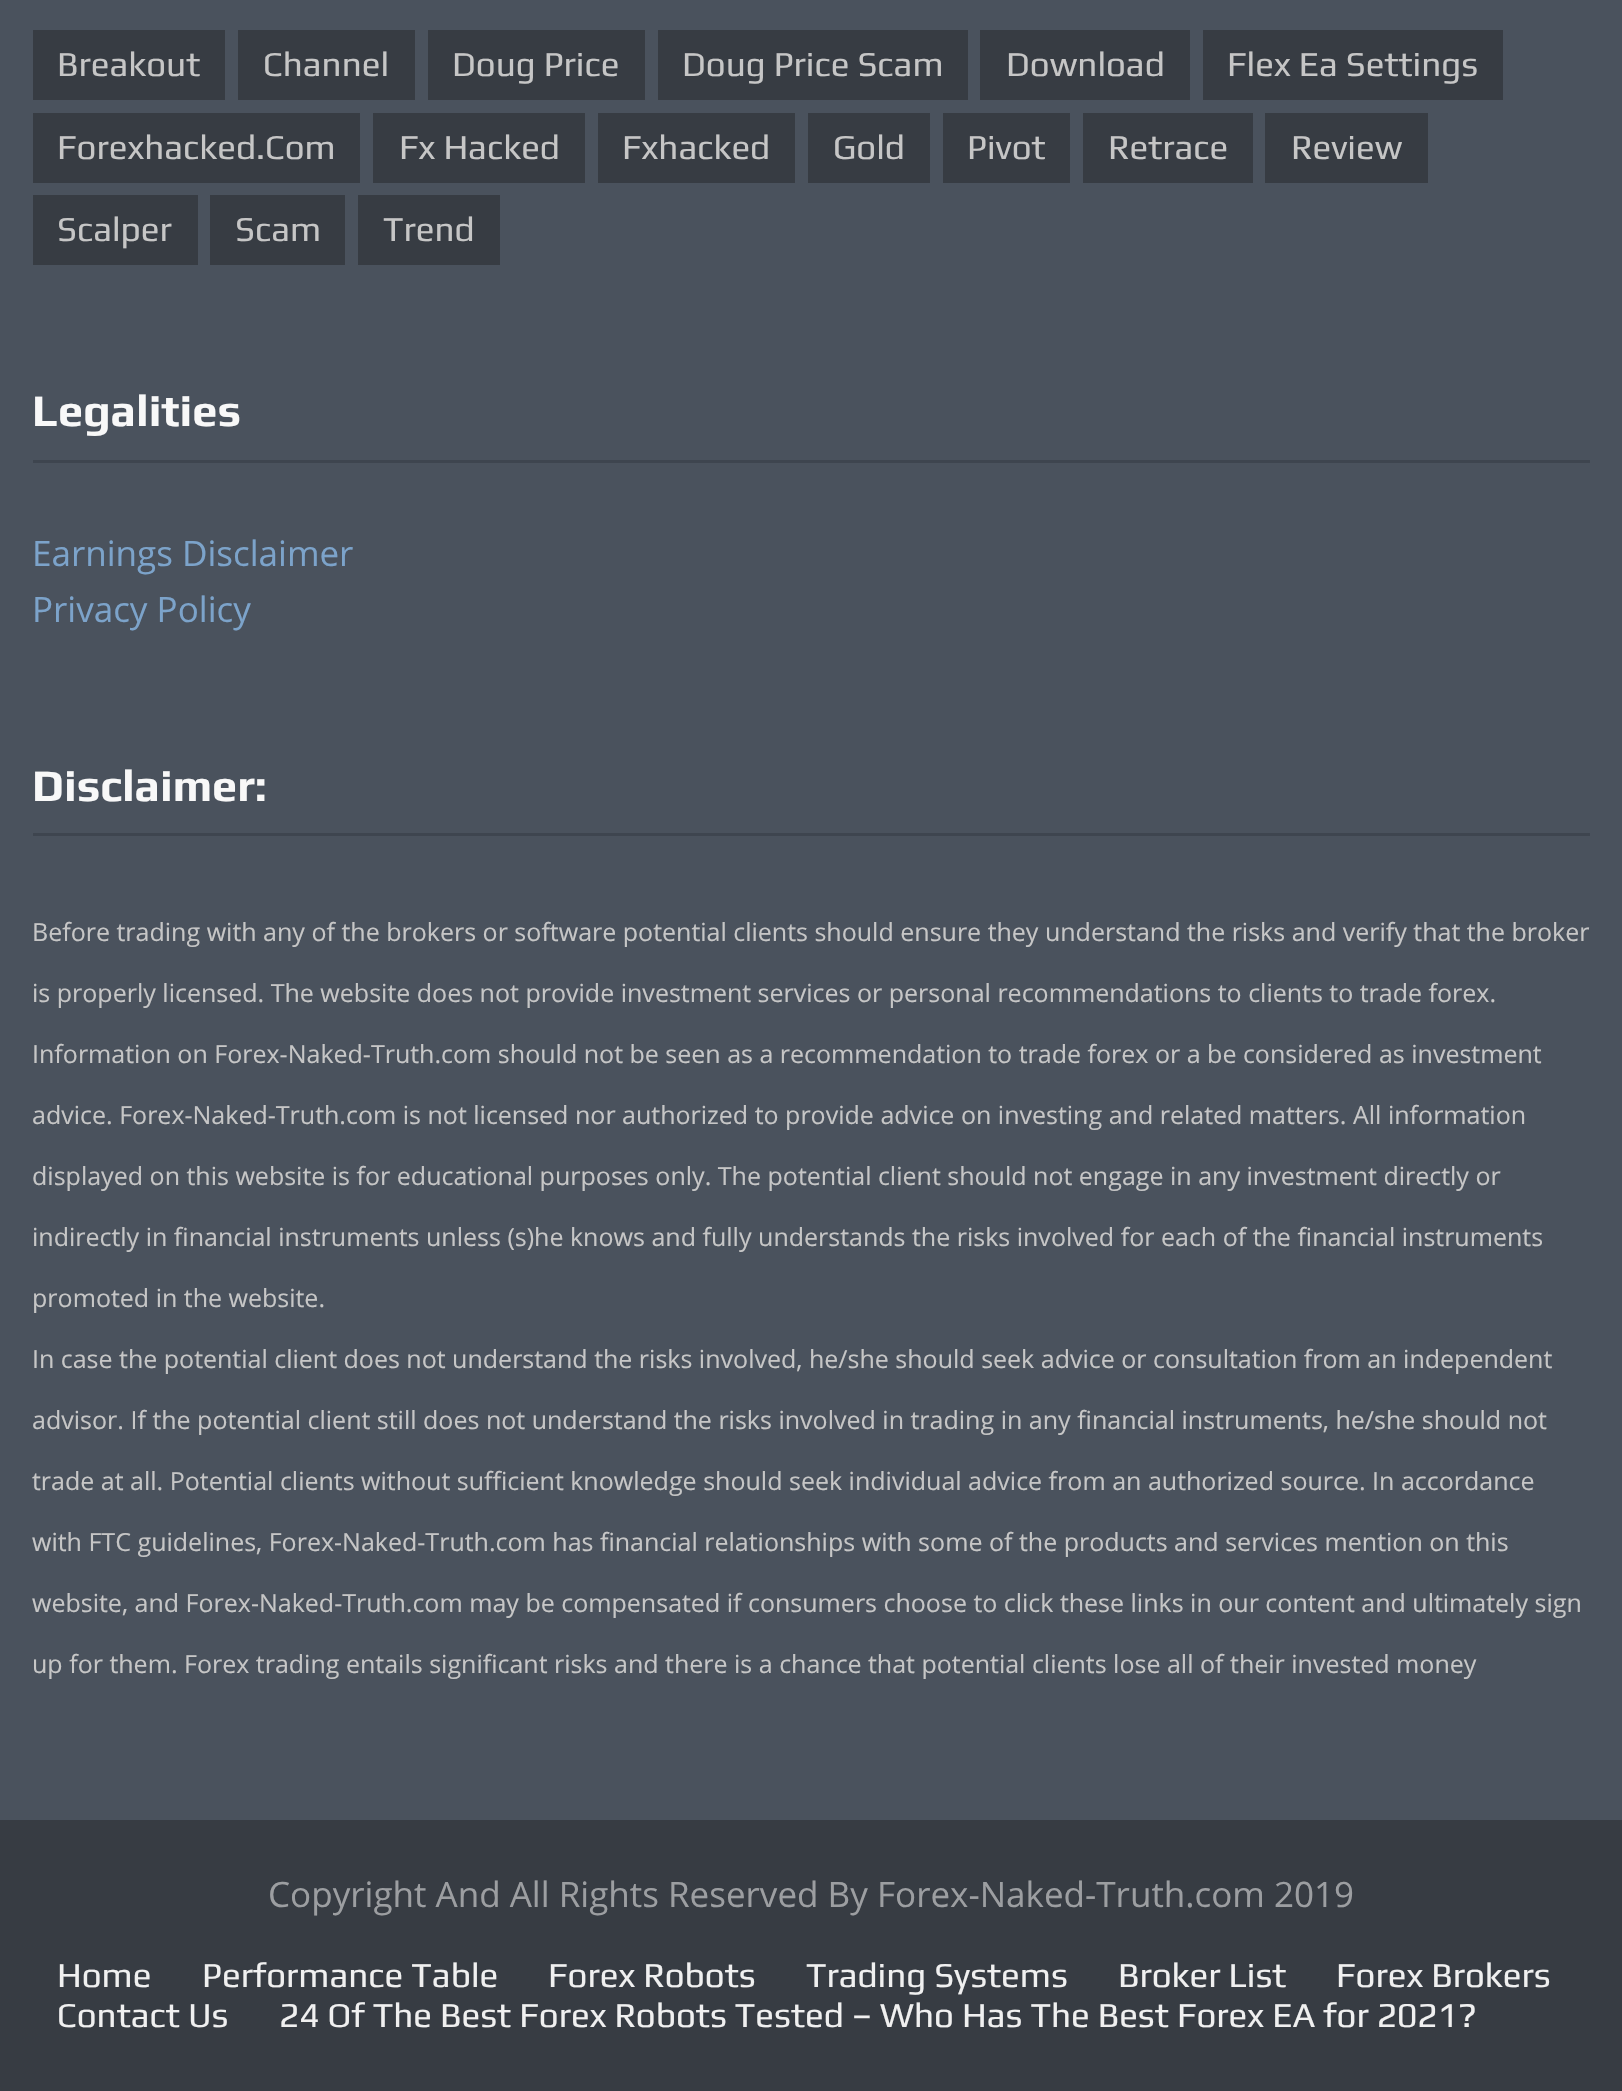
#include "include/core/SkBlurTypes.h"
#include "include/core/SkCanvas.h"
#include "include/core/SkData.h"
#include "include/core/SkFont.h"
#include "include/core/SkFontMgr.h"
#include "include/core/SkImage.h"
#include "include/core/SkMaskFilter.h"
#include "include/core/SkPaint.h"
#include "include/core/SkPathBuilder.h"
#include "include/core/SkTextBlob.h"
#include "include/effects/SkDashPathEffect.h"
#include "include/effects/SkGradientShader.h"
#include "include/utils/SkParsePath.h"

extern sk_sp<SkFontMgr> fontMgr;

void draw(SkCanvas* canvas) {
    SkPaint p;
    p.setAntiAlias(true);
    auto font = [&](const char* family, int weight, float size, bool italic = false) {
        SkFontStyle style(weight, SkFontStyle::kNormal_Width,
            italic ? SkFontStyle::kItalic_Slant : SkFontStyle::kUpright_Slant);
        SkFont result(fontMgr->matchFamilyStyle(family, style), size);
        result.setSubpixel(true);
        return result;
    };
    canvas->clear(0xFF4A525D);
    p.setColor(0xFF373C43);
    canvas->drawRect(SkRect::MakeLTRB(33, 30, 225, 100), p);
    auto font1 = font("Play", 400, 35);
    p.setColor(0xFFC6C6C6);
    canvas->drawString("Breakout", 57, 76, font1, p);
    p.setColor(0xFF373C43);
    canvas->drawRect(SkRect::MakeLTRB(238, 30, 415, 100), p);
    p.setColor(0xFFC6C6C6);
    canvas->drawString("Channel", 263, 76, font1, p);
    p.setColor(0xFF373C43);
    canvas->drawRect(SkRect::MakeLTRB(428, 30, 645, 100), p);
    p.setColor(0xFFC6C6C6);
    canvas->drawString("Doug Price", 452, 76, font1, p);
    p.setColor(0xFF373C43);
    canvas->drawRect(SkRect::MakeLTRB(658, 30, 968, 100), p);
    p.setColor(0xFFC6C6C6);
    canvas->drawString("Doug Price Scam", 682, 76, font1, p);
    p.setColor(0xFF373C43);
    canvas->drawRect(SkRect::MakeLTRB(980, 30, 1190, 100), p);
    p.setColor(0xFFC6C6C6);
    canvas->drawString("Download", 1006, 76, font1, p);
    p.setColor(0xFF373C43);
    canvas->drawRect(SkRect::MakeLTRB(1203, 30, 1503, 100), p);
    p.setColor(0xFFC6C6C6);
    canvas->drawString("Flex Ea Settings", 1227, 76, font1, p);
    p.setColor(0xFF373C43);
    canvas->drawRect(SkRect::MakeLTRB(33, 113, 360, 183), p);
    p.setColor(0xFFC6C6C6);
    canvas->drawString("Forexhacked.Com", 57, 159, font1, p);
    p.setColor(0xFF373C43);
    canvas->drawRect(SkRect::MakeLTRB(373, 113, 585, 183), p);
    p.setColor(0xFFC6C6C6);
    canvas->drawString("Fx Hacked", 399, 159, font1, p);
    p.setColor(0xFF373C43);
    canvas->drawRect(SkRect::MakeLTRB(598, 113, 795, 183), p);
    p.setColor(0xFFC6C6C6);
    canvas->drawString("Fxhacked", 622, 159, font1, p);
    p.setColor(0xFF373C43);
    canvas->drawRect(SkRect::MakeLTRB(808, 113, 930, 183), p);
    p.setColor(0xFFC6C6C6);
    canvas->drawString("Gold", 833, 159, font1, p);
    p.setColor(0xFF373C43);
    canvas->drawRect(SkRect::MakeLTRB(943, 113, 1070, 183), p);
    p.setColor(0xFFC6C6C6);
    canvas->drawString("Pivot", 967, 159, font1, p);
    p.setColor(0xFF373C43);
    canvas->drawRect(SkRect::MakeLTRB(1083, 113, 1253, 183), p);
    p.setColor(0xFFC6C6C6);
    canvas->drawString("Retrace", 1108, 159, font1, p);
    p.setColor(0xFF373C43);
    canvas->drawRect(SkRect::MakeLTRB(1265, 113, 1428, 183), p);
    p.setColor(0xFFC6C6C6);
    canvas->drawString("Review", 1291, 159, font1, p);
    p.setColor(0xFF373C43);
    canvas->drawRect(SkRect::MakeLTRB(33, 195, 198, 265), p);
    p.setColor(0xFFC6C6C6);
    canvas->drawString("Scalper", 57, 241, font1, p);
    p.setColor(0xFF373C43);
    canvas->drawRect(SkRect::MakeLTRB(210, 195, 345, 265), p);
    p.setColor(0xFFC6C6C6);
    canvas->drawString("Scam", 235, 241, font1, p);
    p.setColor(0xFF373C43);
    canvas->drawRect(SkRect::MakeLTRB(358, 195, 500, 265), p);
    p.setColor(0xFFC6C6C6);
    canvas->drawString("Trend", 383, 241, font1, p);
    p.setColor(0xFF3E454F);
    canvas->drawRect(SkRect::MakeLTRB(33, 460, 1590, 463), p);
    auto font2 = font("Play", 700, 45);
    p.setColor(0xFFF8F8F8);
    canvas->drawString("Legalities", 32, 426, font2, p);
    auto font3 = font("Open Sans", 400, 35);
    p.setColor(0xFF7CA3CA);
    canvas->drawString("Earnings Disclaimer", 32, 566, font3, p);
    canvas->drawString("Privacy Policy", 32, 622, font3, p);
    p.setColor(0xFF3E454F);
    canvas->drawRect(SkRect::MakeLTRB(33, 833, 1590, 836), p);
    p.setColor(0xFFF8F8F8);
    canvas->drawString("Disclaimer:", 32, 801, font2, p);
    auto font4 = font("Open Sans", 400, 25);
    p.setColor(0xFFC6C6C6);
    {
        const struct { const char* s; float x, y; } items[] = {
            {"Before trading with any of the brokers or software potential clients should ensure they understand the risks and verify that the broker", 32, 941},
            {"is properly licensed. The website does not provide investment services or personal recommendations to clients to trade forex.", 32, 1002},
            {"Information on Forex-Naked-Truth.com should not be seen as a recommendation to trade forex or a be considered as investment", 32, 1063},
            {"advice. Forex-Naked-Truth.com is not licensed nor authorized to provide advice on investing and related matters. All information", 32, 1124},
            {"displayed on this website is for educational purposes only. The potential client should not engage in any investment directly or", 32, 1185},
            {"indirectly in financial instruments unless (s)he knows and fully understands the risks involved for each of the financial instruments", 32, 1246},
            {"promoted in the website.", 32, 1307},
            {"In case the potential client does not understand the risks involved, he/she should seek advice or consultation from an independent", 32, 1368},
            {"advisor. If the potential client still does not understand the risks involved in trading in any financial instruments, he/she should not", 32, 1429},
            {"trade at all. Potential clients without sufficient knowledge should seek individual advice from an authorized source. In accordance", 32, 1490},
            {"with FTC guidelines, Forex-Naked-Truth.com has financial relationships with some of the products and services mention on this", 32, 1551},
            {"website, and Forex-Naked-Truth.com may be compensated if consumers choose to click these links in our content and ultimately sign", 32, 1612},
            {"up for them. Forex trading entails significant risks and there is a chance that potential clients lose all of their invested money", 32, 1673},
        };
        for (auto [s, x, y] : items) {
            canvas->drawString(s, x, y, font4, p);
        }
    }
    p.setColor(0xFF373C43);
    canvas->drawRect(SkRect::MakeLTRB(0, 1820, 1622, 2091), p);
    p.setColor(0xFF9C9EA1);
    canvas->drawString("Copyright And All Rights Reserved By Forex-Naked-Truth.com 2019", 268, 1907, font3, p);
    p.setColor(0xFFF0F0F0);
    {
        const struct { const char* s; float x, y; } items[] = {
            {"Home", 57, 1987},
            {"Performance Table", 202, 1987},
            {"Forex Robots", 548, 1987},
            {"Trading Systems", 806, 1987},
            {"Broker List", 1118, 1987},
            {"Forex Brokers", 1336, 1987},
            {"Contact Us", 57, 2027},
            {"24 Of The Best Forex Robots Tested – Who Has The Best Forex EA for 2021?", 279, 2027},
        };
        for (auto [s, x, y] : items) {
            canvas->drawString(s, x, y, font1, p);
        }
    }
}
